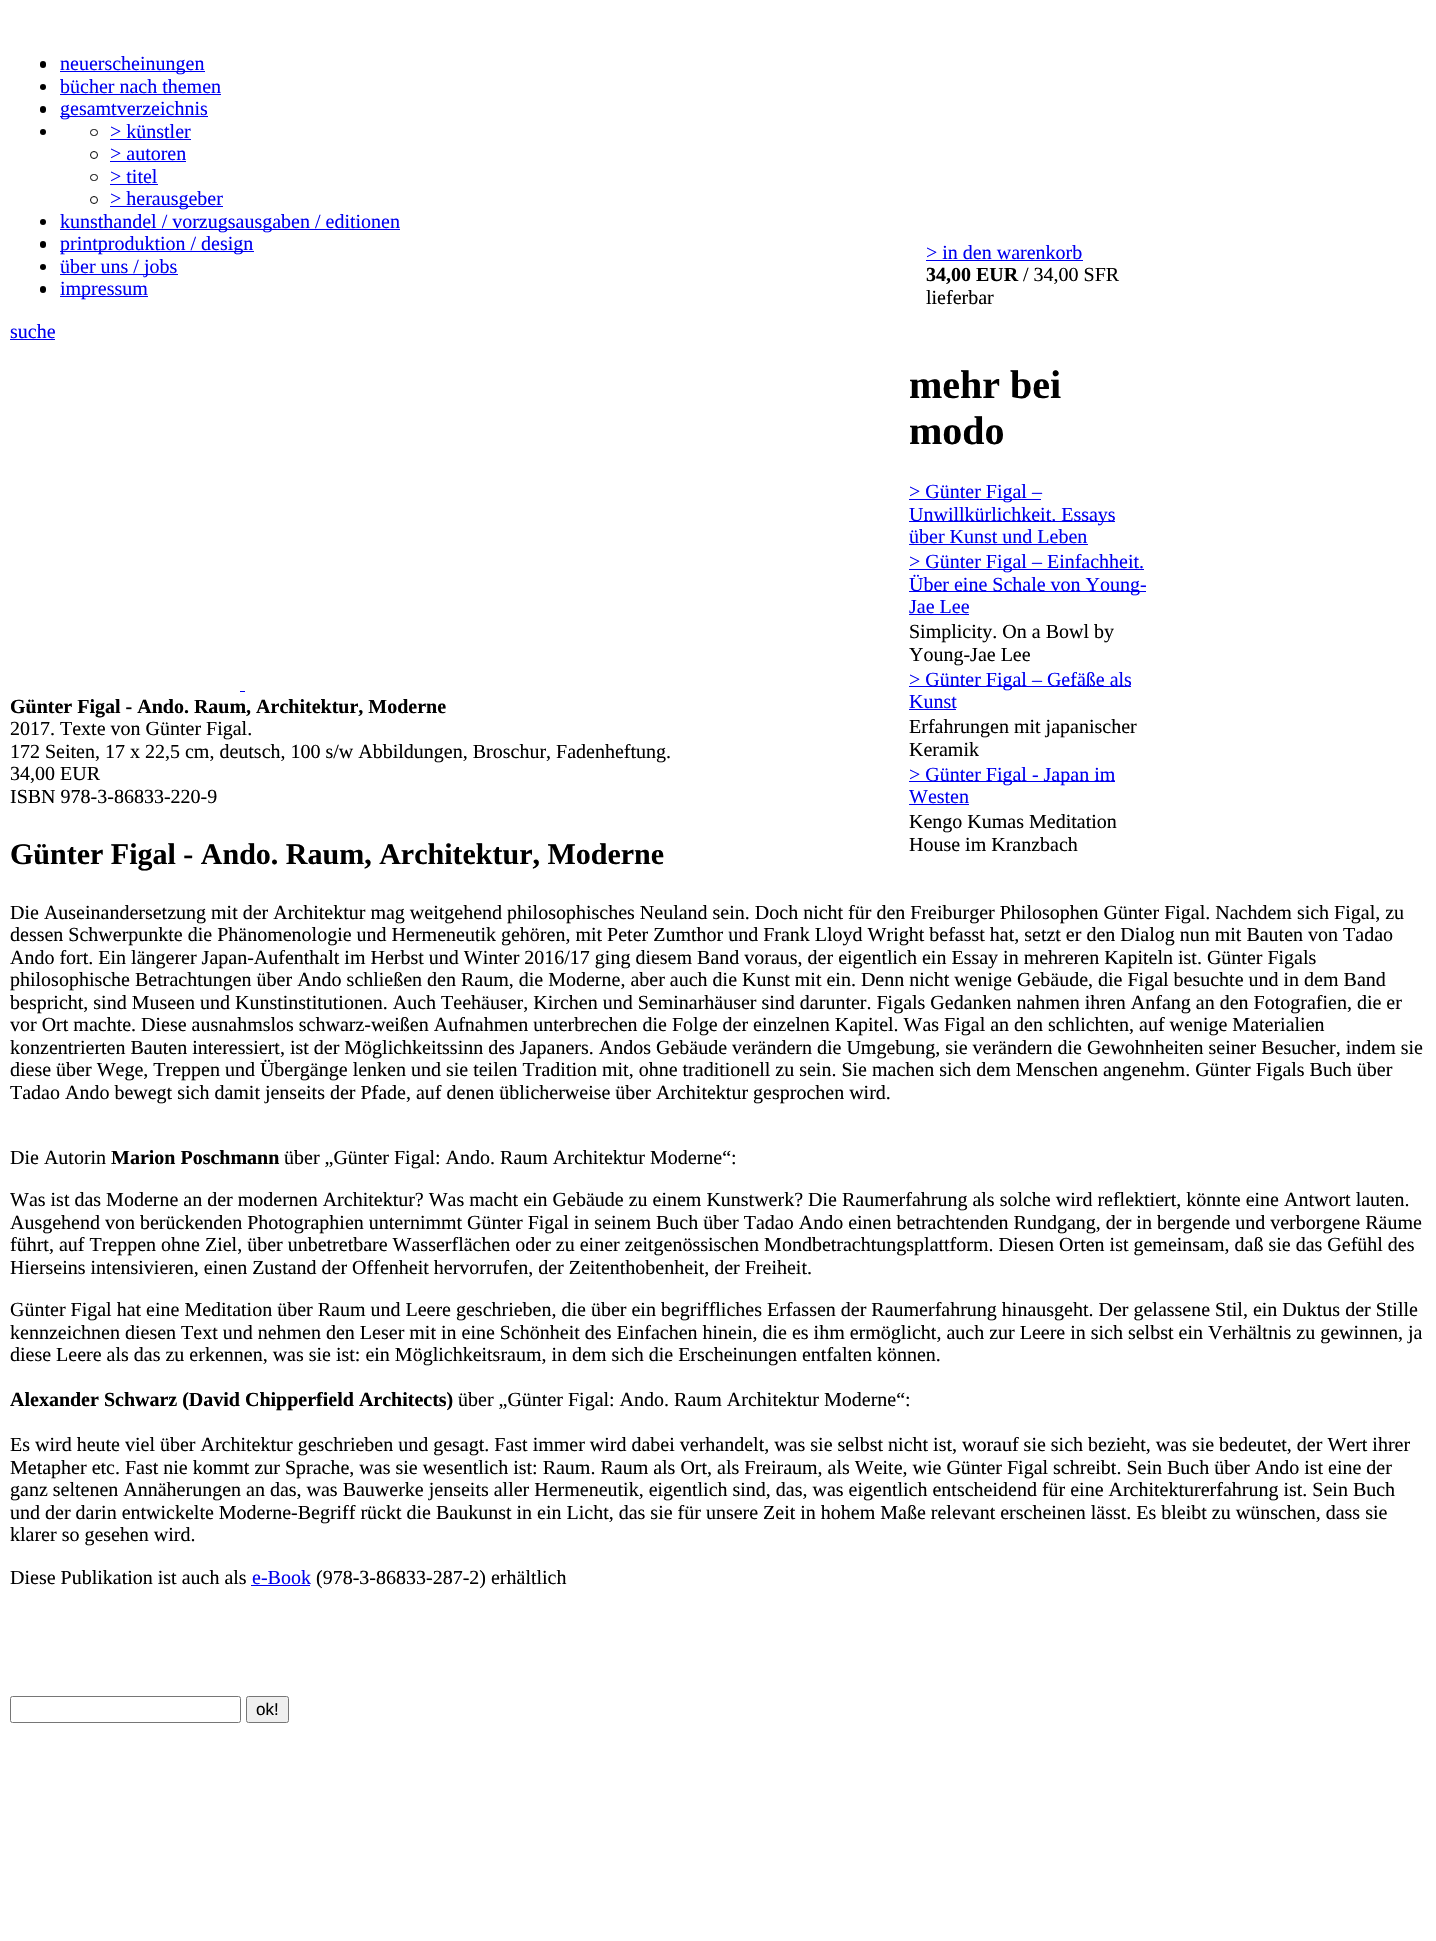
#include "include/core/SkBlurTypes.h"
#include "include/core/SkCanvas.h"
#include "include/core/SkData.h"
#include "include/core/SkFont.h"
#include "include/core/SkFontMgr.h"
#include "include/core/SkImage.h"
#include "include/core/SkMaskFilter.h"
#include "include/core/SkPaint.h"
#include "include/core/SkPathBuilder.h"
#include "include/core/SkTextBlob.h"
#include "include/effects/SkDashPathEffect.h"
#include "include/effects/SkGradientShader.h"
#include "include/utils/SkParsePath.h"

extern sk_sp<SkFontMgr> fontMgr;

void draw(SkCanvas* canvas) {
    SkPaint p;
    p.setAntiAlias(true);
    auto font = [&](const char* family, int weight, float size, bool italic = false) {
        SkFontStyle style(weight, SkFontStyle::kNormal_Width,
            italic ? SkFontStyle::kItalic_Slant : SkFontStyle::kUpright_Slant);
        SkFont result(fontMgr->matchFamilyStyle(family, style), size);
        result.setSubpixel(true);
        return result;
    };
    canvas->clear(0xFFFFFFFF);
    p.setColor(0xFF000000);
    canvas->drawRoundRect(SkRect::MakeLTRB(40, 61, 46, 68), 3, 3, p);
    p.setColor(0xFF0000EE);
    canvas->drawRect(SkRect::MakeLTRB(60, 71, 205, 72), p);
    auto font1 = font("Liberation Serif", 400, 20);
    canvas->drawString("neuerscheinungen", 60, 70, font1, p);
    p.setColor(0xFF000000);
    canvas->drawCircle(43, 87, 3, p);
    p.setColor(0xFF0000EE);
    canvas->drawString("bücher nach themen", 60, 93, font1, p);
    canvas->drawRect(SkRect::MakeLTRB(60, 94, 221, 95), p);
    p.setColor(0xFF000000);
    canvas->drawRoundRect(SkRect::MakeLTRB(40, 106, 46, 113), 3, 3, p);
    p.setColor(0xFF0000EE);
    canvas->drawRect(SkRect::MakeLTRB(60, 116, 208, 117), p);
    canvas->drawString("gesamtverzeichnis", 60, 115, font1, p);
    p.setColor(0xFF000000);
    canvas->drawCircle(43, 132, 3, p);
    p.setStyle(SkPaint::kStroke_Style);
    p.setStrokeWidth(1);
    canvas->drawRoundRect(SkRect::MakeLTRB(90.5f, 129.5f, 97.5f, 135.5f), 3, 3, p);
    p.setStyle(SkPaint::kFill_Style);
    p.setColor(0xFF0000EE);
    canvas->drawString("> künstler", 110, 138, font1, p);
    canvas->drawRect(SkRect::MakeLTRB(110, 139, 191, 140), p);
    p.setStyle(SkPaint::kStroke_Style);
    p.setColor(0xFF000000);
    canvas->drawCircle(94, 155, 3.5f, p);
    p.setStyle(SkPaint::kFill_Style);
    p.setColor(0xFF0000EE);
    canvas->drawString("> autoren", 110, 160, font1, p);
    canvas->drawRect(SkRect::MakeLTRB(110, 161, 186, 162), p);
    p.setStyle(SkPaint::kStroke_Style);
    p.setColor(0xFF000000);
    canvas->drawRoundRect(SkRect::MakeLTRB(90.5f, 174.5f, 97.5f, 180.5f), 3, 3, p);
    p.setStyle(SkPaint::kFill_Style);
    p.setColor(0xFF0000EE);
    canvas->drawString("> titel", 110, 183, font1, p);
    canvas->drawRect(SkRect::MakeLTRB(110, 184, 158, 185), p);
    p.setStyle(SkPaint::kStroke_Style);
    p.setColor(0xFF000000);
    canvas->drawCircle(94, 200, 3.5f, p);
    p.setStyle(SkPaint::kFill_Style);
    p.setColor(0xFF0000EE);
    canvas->drawRect(SkRect::MakeLTRB(110, 206, 223, 207), p);
    canvas->drawString("> herausgeber", 110, 205, font1, p);
    p.setColor(0xFF000000);
    canvas->drawCircle(43, 222, 3, p);
    p.setColor(0xFF0000EE);
    canvas->drawRect(SkRect::MakeLTRB(60, 229, 400, 230), p);
    canvas->drawString("kunsthandel / vorzugsausgaben / editionen", 60, 228, font1, p);
    p.setColor(0xFF000000);
    canvas->drawRoundRect(SkRect::MakeLTRB(40, 241, 46, 248), 3, 3, p);
    p.setColor(0xFF0000EE);
    canvas->drawRect(SkRect::MakeLTRB(60, 251, 254, 252), p);
    canvas->drawString("printproduktion / design", 60, 250, font1, p);
    p.setColor(0xFF000000);
    canvas->drawCircle(43, 267, 3, p);
    p.setColor(0xFF0000EE);
    canvas->drawRect(SkRect::MakeLTRB(60, 274, 178, 275), p);
    canvas->drawString("über uns / jobs", 60, 273, font1, p);
    p.setColor(0xFF000000);
    canvas->drawRoundRect(SkRect::MakeLTRB(40, 286, 46, 293), 3, 3, p);
    p.setColor(0xFF0000EE);
    canvas->drawRect(SkRect::MakeLTRB(60, 296, 148, 297), p);
    canvas->drawString("impressum", 60, 295, font1, p);
    canvas->drawString("suche", 10, 338, font1, p);
    canvas->drawRect(SkRect::MakeLTRB(10, 339, 55, 340), p);
    canvas->drawString("> in den warenkorb", 926, 259, font1, p);
    canvas->drawRect(SkRect::MakeLTRB(926, 260, 1083, 261), p);
    auto font2 = font("Liberation Serif", 700, 20);
    p.setColor(0xFF000000);
    canvas->drawString("34,00 EUR", 926, 281, font2, p);
    canvas->drawString("/ 34,00 SFR", 1023, 281, font1, p);
    canvas->drawString("lieferbar", 926, 304, font1, p);
    auto font3 = font("Liberation Serif", 700, 40);
    canvas->drawString("mehr bei", 909, 398, font3, p);
    canvas->drawString("modo", 909, 444, font3, p);
    p.setColor(0xFF0000EE);
    canvas->drawRect(SkRect::MakeLTRB(909, 499, 1041, 500), p);
    canvas->drawString("> Günter Figal –", 909, 498, font1, p);
    canvas->drawRect(SkRect::MakeLTRB(909, 521, 1115, 522), p);
    canvas->drawString("Unwillkürlichkeit. Essays", 909, 521, font1, p);
    canvas->drawString("über Kunst und Leben", 909, 543, font1, p);
    canvas->drawRect(SkRect::MakeLTRB(909, 544, 1088, 545), p);
    canvas->drawRect(SkRect::MakeLTRB(909, 569, 1144, 570), p);
    canvas->drawString("> Günter Figal – Einfachheit.", 909, 568, font1, p);
    canvas->drawRect(SkRect::MakeLTRB(909, 591, 1146, 592), p);
    canvas->drawString("Über eine Schale von Young-", 909, 591, font1, p);
    canvas->drawString("Jae Lee", 909, 613, font1, p);
    canvas->drawRect(SkRect::MakeLTRB(909, 614, 969, 615), p);
    p.setColor(0xFF000000);
    canvas->drawString("Simplicity. On a Bowl by", 909, 638, font1, p);
    canvas->drawString("Young-Jae Lee", 909, 661, font1, p);
    p.setColor(0xFF0000EE);
    canvas->drawRect(SkRect::MakeLTRB(909, 686, 1131, 687), p);
    canvas->drawString("> Günter Figal – Gefäße als", 909, 686, font1, p);
    canvas->drawString("Kunst", 909, 708, font1, p);
    canvas->drawRect(SkRect::MakeLTRB(909, 709, 956, 710), p);
    p.setColor(0xFF000000);
    canvas->drawString("Erfahrungen mit japanischer", 909, 733, font1, p);
    canvas->drawString("Keramik", 909, 756, font1, p);
    p.setColor(0xFF0000EE);
    canvas->drawRect(SkRect::MakeLTRB(909, 781, 1115, 782), p);
    canvas->drawString("> Günter Figal - Japan im", 909, 781, font1, p);
    canvas->drawString("Westen", 909, 803, font1, p);
    canvas->drawRect(SkRect::MakeLTRB(909, 804, 969, 805), p);
    p.setColor(0xFF000000);
    canvas->drawString("Kengo Kumas Meditation", 909, 828, font1, p);
    canvas->drawString("House im Kranzbach", 909, 851, font1, p);
    p.setColor(0xFF0000EE);
    canvas->drawRect(SkRect::MakeLTRB(240, 691, 245, 692), p);
    p.setColor(0xFF000000);
    canvas->drawString("Günter Figal - Ando. Raum, Architektur, Moderne", 10, 713, font2, p);
    {
        const struct { const char* s; float x, y; } items[] = {
            {"2017. Texte von Günter Figal.", 10, 735},
            {"172 Seiten, 17 x 22,5 cm, deutsch, 100 s/w Abbildungen, Broschur, Fadenheftung.", 10, 758},
            {"34,00 EUR", 10, 780},
            {"ISBN 978-3-86833-220-9", 10, 803},
        };
        for (auto [s, x, y] : items) {
            canvas->drawString(s, x, y, font1, p);
        }
    }
    auto font4 = font("Liberation Serif", 700, 30);
    canvas->drawString("Günter Figal - Ando. Raum, Architektur, Moderne", 10, 864, font4, p);
    {
        const struct { const char* s; float x, y; } items[] = {
            {"Die Auseinandersetzung mit der Architektur mag weitgehend philosophisches Neuland sein. Doch nicht für den Freiburger Philosophen Günter Figal. Nachdem sich Figal, zu", 10, 919},
            {"dessen Schwerpunkte die Phänomenologie und Hermeneutik gehören, mit Peter Zumthor und Frank Lloyd Wright befasst hat, setzt er den Dialog nun mit Bauten von Tadao", 10, 941},
            {"Ando fort. Ein längerer Japan-Aufenthalt im Herbst und Winter 2016/17 ging diesem Band voraus, der eigentlich ein Essay in mehreren Kapiteln ist. Günter Figals", 10, 964},
            {"philosophische Betrachtungen über Ando schließen den Raum, die Moderne, aber auch die Kunst mit ein. Denn nicht wenige Gebäude, die Figal besuchte und in dem Band", 10, 986},
            {"bespricht, sind Museen und Kunstinstitutionen. Auch Teehäuser, Kirchen und Seminarhäuser sind darunter. Figals Gedanken nahmen ihren Anfang an den Fotografien, die er", 10, 1009},
            {"vor Ort machte. Diese ausnahmslos schwarz-weißen Aufnahmen unterbrechen die Folge der einzelnen Kapitel. Was Figal an den schlichten, auf wenige Materialien", 10, 1031},
            {"konzentrierten Bauten interessiert, ist der Möglichkeitssinn des Japaners. Andos Gebäude verändern die Umgebung, sie verändern die Gewohnheiten seiner Besucher, indem sie", 10, 1054},
            {"diese über Wege, Treppen und Übergänge lenken und sie teilen Tradition mit, ohne traditionell zu sein. Sie machen sich dem Menschen angenehm. Günter Figals Buch über", 10, 1076},
            {"Tadao Ando bewegt sich damit jenseits der Pfade, auf denen üblicherweise über Architektur gesprochen wird.", 10, 1099},
            {"Die Autorin", 10, 1164},
        };
        for (auto [s, x, y] : items) {
            canvas->drawString(s, x, y, font1, p);
        }
    }
    canvas->drawString("Marion Poschmann", 111, 1164, font2, p);
    {
        const struct { const char* s; float x, y; } items[] = {
            {"über „Günter Figal: Ando. Raum Architektur Moderne“:", 284, 1164},
            {"Was ist das Moderne an der modernen Architektur? Was macht ein Gebäude zu einem Kunstwerk? Die Raumerfahrung als solche wird reflektiert, könnte eine Antwort lauten.", 10, 1206},
            {"Ausgehend von berückenden Photographien unternimmt Günter Figal in seinem Buch über Tadao Ando einen betrachtenden Rundgang, der in bergende und verborgene Räume", 10, 1229},
            {"führt, auf Treppen ohne Ziel, über unbetretbare Wasserflächen oder zu einer zeitgenössischen Mondbetrachtungsplattform. Diesen Orten ist gemeinsam, daß sie das Gefühl des", 10, 1251},
            {"Hierseins intensivieren, einen Zustand der Offenheit hervorrufen, der Zeitenthobenheit, der Freiheit.", 10, 1274},
            {"Günter Figal hat eine Meditation über Raum und Leere geschrieben, die über ein begriffliches Erfassen der Raumerfahrung hinausgeht. Der gelassene Stil, ein Duktus der Stille", 10, 1316},
            {"kennzeichnen diesen Text und nehmen den Leser mit in eine Schönheit des Einfachen hinein, die es ihm ermöglicht, auch zur Leere in sich selbst ein Verhältnis zu gewinnen, ja", 10, 1339},
            {"diese Leere als das zu erkennen, was sie ist: ein Möglichkeitsraum, in dem sich die Erscheinungen entfalten können.", 10, 1361},
        };
        for (auto [s, x, y] : items) {
            canvas->drawString(s, x, y, font1, p);
        }
    }
    canvas->drawString("Alexander Schwarz (David Chipperfield Architects)", 10, 1406, font2, p);
    {
        const struct { const char* s; float x, y; } items[] = {
            {"über „Günter Figal: Ando. Raum Architektur Moderne“:", 458, 1406},
            {"Es wird heute viel über Architektur geschrieben und gesagt. Fast immer wird dabei verhandelt, was sie selbst nicht ist, worauf sie sich bezieht, was sie bedeutet, der Wert ihrer", 10, 1451},
            {"Metapher etc. Fast nie kommt zur Sprache, was sie wesentlich ist: Raum. Raum als Ort, als Freiraum, als Weite, wie Günter Figal schreibt. Sein Buch über Ando ist eine der", 10, 1474},
            {"ganz seltenen Annäherungen an das, was Bauwerke jenseits aller Hermeneutik, eigentlich sind, das, was eigentlich entscheidend für eine Architekturerfahrung ist. Sein Buch", 10, 1496},
            {"und der darin entwickelte Moderne-Begriff rückt die Baukunst in ein Licht, das sie für unsere Zeit in hohem Maße relevant erscheinen lässt. Es bleibt zu wünschen, dass sie", 10, 1519},
            {"klarer so gesehen wird.", 10, 1541},
            {"Diese Publikation ist auch als", 10, 1584},
        };
        for (auto [s, x, y] : items) {
            canvas->drawString(s, x, y, font1, p);
        }
    }
    p.setColor(0xFF0000EE);
    canvas->drawString("e-Book", 252, 1584, font1, p);
    canvas->drawRect(SkRect::MakeLTRB(251, 1585, 310, 1586), p);
    p.setColor(0xFF000000);
    canvas->drawString("(978-3-86833-287-2) erhältlich", 316, 1584, font1, p);
    p.setStyle(SkPaint::kStroke_Style);
    p.setColor(0xFF767676);
    canvas->drawRoundRect(SkRect::MakeLTRB(10.5f, 1696.5f, 240.5f, 1722.5f), 2, 2, p);
    p.setStyle(SkPaint::kFill_Style);
    p.setColor(0xFFEFEFEF);
    canvas->drawRoundRect(SkRect::MakeLTRB(246.5f, 1696.5f, 288.5f, 1722.5f), 2, 2, p);
    p.setStyle(SkPaint::kStroke_Style);
    p.setColor(0xFF767676);
    canvas->drawRoundRect(SkRect::MakeLTRB(246.5f, 1696.5f, 288.5f, 1722.5f), 2, 2, p);
    auto font5 = font("Liberation Sans", 400, 17);
    p.setStyle(SkPaint::kFill_Style);
    p.setColor(0xFF000000);
    canvas->drawString("ok!", 256, 1715, font5, p);
}
